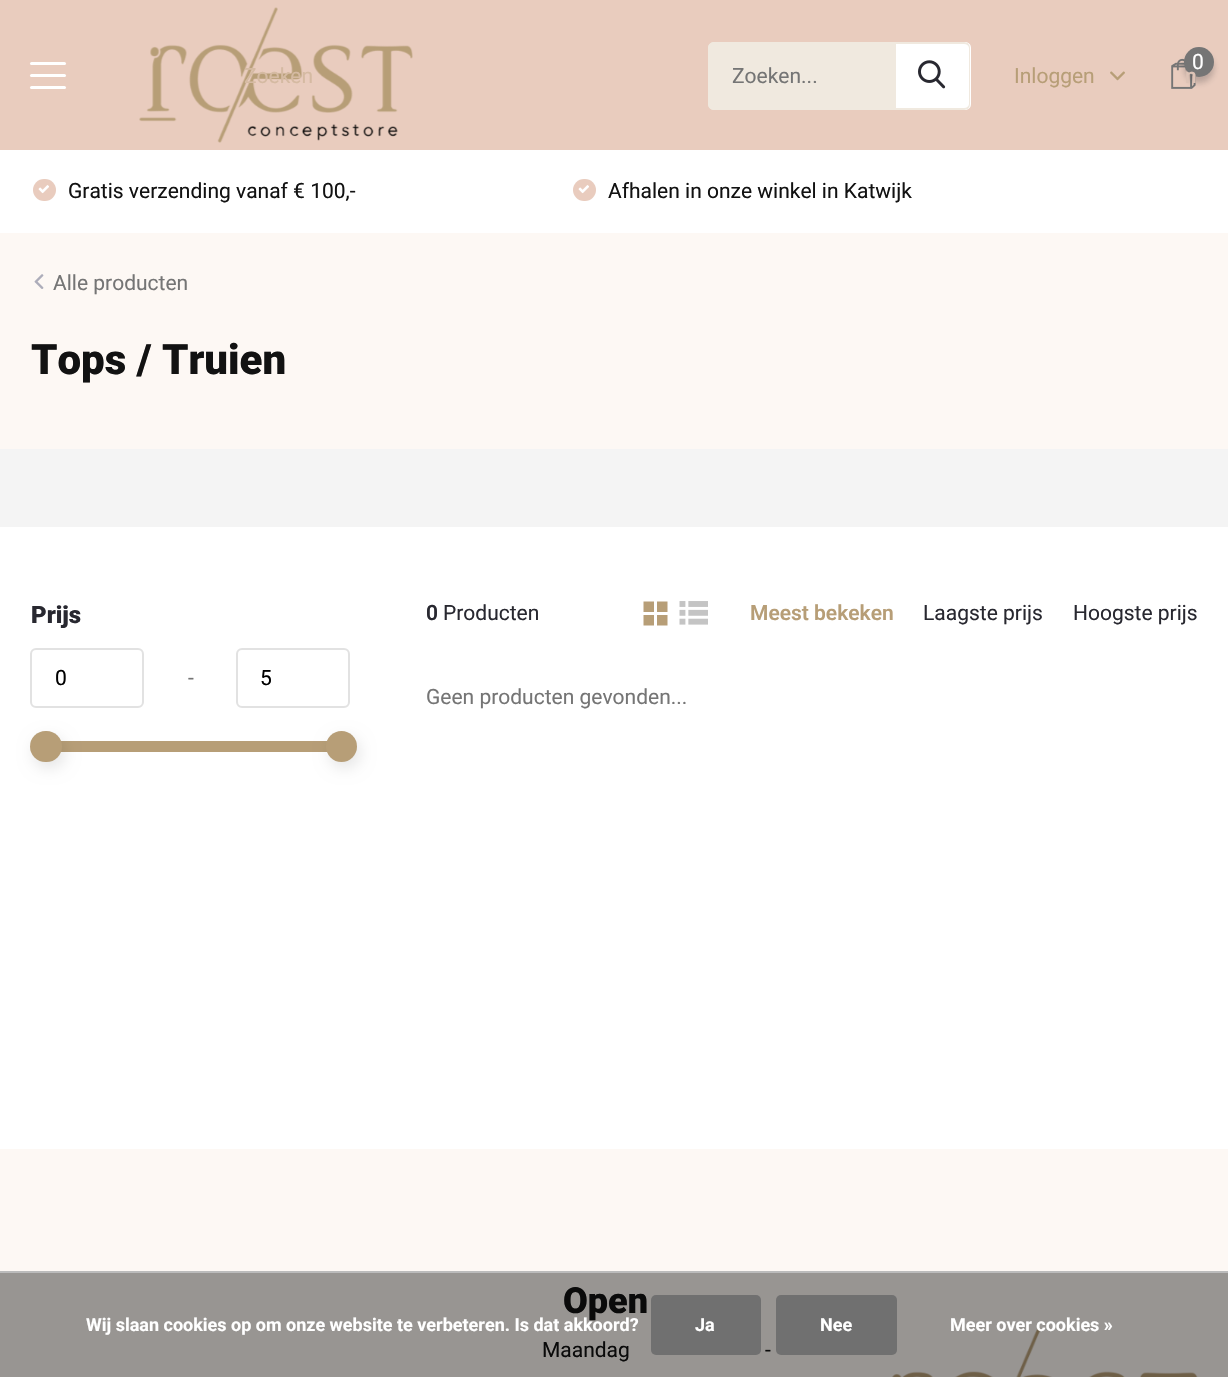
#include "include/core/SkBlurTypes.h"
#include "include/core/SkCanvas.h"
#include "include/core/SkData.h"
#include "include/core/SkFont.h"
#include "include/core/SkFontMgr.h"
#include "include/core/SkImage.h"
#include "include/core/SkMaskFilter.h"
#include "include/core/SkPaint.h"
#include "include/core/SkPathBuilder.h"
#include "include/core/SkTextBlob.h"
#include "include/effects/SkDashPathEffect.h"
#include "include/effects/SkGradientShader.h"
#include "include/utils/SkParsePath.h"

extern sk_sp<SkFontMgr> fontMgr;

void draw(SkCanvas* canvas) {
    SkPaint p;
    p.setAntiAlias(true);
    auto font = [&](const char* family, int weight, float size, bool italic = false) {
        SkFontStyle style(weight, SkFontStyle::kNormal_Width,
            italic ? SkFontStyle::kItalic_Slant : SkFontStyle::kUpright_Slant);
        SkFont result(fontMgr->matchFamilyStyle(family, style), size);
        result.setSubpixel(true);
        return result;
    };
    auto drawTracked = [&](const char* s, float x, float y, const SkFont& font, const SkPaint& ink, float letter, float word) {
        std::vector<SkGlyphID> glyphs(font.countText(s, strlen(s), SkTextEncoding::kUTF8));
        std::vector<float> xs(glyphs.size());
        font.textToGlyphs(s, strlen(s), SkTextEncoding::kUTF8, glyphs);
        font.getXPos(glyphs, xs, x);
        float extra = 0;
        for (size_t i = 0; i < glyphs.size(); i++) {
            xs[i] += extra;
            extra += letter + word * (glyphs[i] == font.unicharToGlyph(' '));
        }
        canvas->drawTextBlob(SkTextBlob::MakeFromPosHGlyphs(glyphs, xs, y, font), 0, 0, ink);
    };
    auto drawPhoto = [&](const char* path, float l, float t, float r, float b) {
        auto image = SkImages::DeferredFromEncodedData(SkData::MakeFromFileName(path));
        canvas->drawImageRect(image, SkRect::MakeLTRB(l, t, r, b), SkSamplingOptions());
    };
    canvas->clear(0xFFFFFFFF);
    p.setColor(0xFFE9CCBE);
    canvas->drawRect(SkRect::MakeLTRB(0, 0, 1228, 150), p);
    p.setColor(0xFFFFFFFF);
    canvas->drawRoundRect(SkRect::MakeLTRB(30, 62, 66, 65), 1.5f, 1.5f, p);
    canvas->drawRoundRect(SkRect::MakeLTRB(30, 74, 66, 77), 1.5f, 1.5f, p);
    canvas->drawRoundRect(SkRect::MakeLTRB(30, 86, 66, 89), 1.5f, 1.5f, p);
    drawPhoto("media/1.png", 139, 7, 413, 143);
    drawPhoto("media/2.png", 1171, 58, 1196, 89);
    p.setColor(0x40282830);
    p.setMaskFilter(SkMaskFilter::MakeBlur(kNormal_SkBlurStyle, 3));
    canvas->drawRoundRect(SkRect::MakeLTRB(1184, 53, 1214, 83), 15, 15, p);
    p.setMaskFilter(nullptr);
    p.setColor(0xFF757575);
    canvas->drawCircle(1199, 62, 15, p);
    auto font1 = font("Roboto", 400, 21);
    p.setColor(0xFFFFFFFF);
    canvas->drawString("0", 1192, 69, font1, p);
    p.setColor(0xFFF0E9DF);
    canvas->drawPath(SkPathBuilder().moveTo(714, 42).lineTo(896, 42).lineTo(896, 110).lineTo(714, 110).cubicTo(710.5f, 110, 708, 107.5f, 708, 104).lineTo(708, 48).cubicTo(708, 44.5f, 710.5f, 42, 714, 42).close().detach(), p);
    canvas->drawPath(SkPathBuilder(SkPathFillType::kEvenOdd).moveTo(714, 42).lineTo(896, 42).lineTo(896, 110).lineTo(714, 110).cubicTo(711, 110, 708, 107, 708, 104).lineTo(708, 48).cubicTo(708, 45, 711, 42, 714, 42).close().moveTo(714, 44).lineTo(896, 44).lineTo(896, 108).lineTo(714, 108).cubicTo(712, 108, 710, 106, 710, 104).lineTo(710, 48).cubicTo(710, 46, 712, 44, 714, 44).close().detach(), p);
    p.setColor(0xFF757575);
    canvas->drawString("Zoeken...", 732, 83, font1, p);
    p.setColor(0xFFFFFFFF);
    canvas->drawPath(SkPathBuilder().moveTo(896, 42).lineTo(965, 42).cubicTo(968.5f, 42, 971, 44.5f, 971, 48).lineTo(971, 104).cubicTo(971, 107.5f, 968.5f, 110, 965, 110).lineTo(896, 110).close().detach(), p);
    p.setColor(0xFFF0E9DF);
    canvas->drawPath(SkPathBuilder(SkPathFillType::kEvenOdd).moveTo(896, 42).lineTo(964, 42).cubicTo(968, 42, 970, 45, 970, 48).lineTo(970, 104).cubicTo(970, 107, 968, 110, 964, 110).lineTo(896, 110).close().moveTo(896, 44).lineTo(964, 44).cubicTo(967, 44, 969, 46, 969, 48).lineTo(969, 104).cubicTo(969, 106, 967, 108, 964, 108).lineTo(896, 108).close().detach(), p);
    drawPhoto("media/3.png", 918, 60, 946, 89);
    p.setColor(0xFFB79E77);
    canvas->drawString("Inloggen", 1014, 83, font1, p);
    drawPhoto("media/4.png", 1110, 71, 1125, 81);
    p.setColor(0xFFD5BAA2);
    canvas->drawString("Zoeken", 244, 83, font1, p);
    auto font2 = font("Roboto", 500, 21);
    p.setColor(0xFFDDC3B6);
    drawTracked("n", 1185, 83, font2, p, 1, 0);
    p.setColor(0xFFE9CCBE);
    canvas->drawRoundRect(SkRect::MakeLTRB(33, 179, 56, 201), 11, 11, p);
    drawPhoto("media/5.png", 38, 185, 49, 194);
    p.setColor(0xFF121212);
    canvas->drawString("Gratis verzending vanaf € 100,-", 68, 198, font1, p);
    p.setColor(0xFFE9CCBE);
    canvas->drawRoundRect(SkRect::MakeLTRB(573, 179, 596, 201), 11, 11, p);
    drawPhoto("media/5.png", 578, 185, 589, 194);
    p.setColor(0xFF121212);
    canvas->drawString("Afhalen in onze winkel in Katwijk", 608, 198, font1, p);
    p.setColor(0xFFFDF8F4);
    canvas->drawRect(SkRect::MakeLTRB(0, 233, 1228, 449), p);
    drawPhoto("media/6.png", 34, 274, 44, 289);
    p.setColor(0xFF757575);
    canvas->drawString("Alle producten", 53, 290, font1, p);
    auto font3 = font("Roboto", 900, 42);
    p.setColor(0xFF121212);
    canvas->drawString("Tops / Truien", 31, 374, font3, p);
    p.setColor(0xFFF4F4F4);
    canvas->drawRect(SkRect::MakeLTRB(0, 449, 1228, 527), p);
    auto font4 = font("Roboto", 900, 24);
    p.setColor(0xFF282830);
    canvas->drawString("Prijs", 31, 623, font4, p);
    p.setStyle(SkPaint::kStroke_Style);
    p.setStrokeWidth(2);
    p.setColor(0xFFE2E2E2);
    canvas->drawRoundRect(SkRect::MakeLTRB(31, 649, 143, 707), 5, 5, p);
    p.setStyle(SkPaint::kFill_Style);
    p.setColor(0xFF000000);
    canvas->drawString("0", 55, 685, font1, p);
    p.setColor(0xFF757575);
    canvas->drawString("-", 188, 685, font1, p);
    p.setStyle(SkPaint::kStroke_Style);
    p.setColor(0xFFE2E2E2);
    canvas->drawRoundRect(SkRect::MakeLTRB(237, 649, 349, 707), 5, 5, p);
    p.setStyle(SkPaint::kFill_Style);
    p.setColor(0xFF000000);
    canvas->drawString("5", 260, 685, font1, p);
    p.setColor(0xFFB79E77);
    canvas->drawRect(SkRect::MakeLTRB(61, 741, 327, 752), p);
    p.setColor(0x1A000000);
    p.setMaskFilter(SkMaskFilter::MakeBlur(kNormal_SkBlurStyle, 7.5f));
    canvas->drawRoundRect(SkRect::MakeLTRB(33, 737, 65, 768), 15.5f, 15.5f, p);
    p.setMaskFilter(nullptr);
    p.setColor(0xFFB79E77);
    canvas->drawRoundRect(SkRect::MakeLTRB(30, 731, 62, 762), 15.5f, 15.5f, p);
    p.setColor(0x1A000000);
    p.setMaskFilter(SkMaskFilter::MakeBlur(kNormal_SkBlurStyle, 7.5f));
    canvas->drawRoundRect(SkRect::MakeLTRB(329, 737, 360, 768), 15.5f, 15.5f, p);
    p.setMaskFilter(nullptr);
    p.setColor(0xFFB79E77);
    canvas->drawCircle(341.5f, 746.5f, 15.5f, p);
    auto font5 = font("Roboto", 600, 21);
    p.setColor(0xFF282830);
    canvas->drawString("0", 426, 620, font5, p);
    canvas->drawString("Producten", 443, 620, font1, p);
    drawPhoto("media/7.png", 643, 601, 668, 626);
    drawPhoto("media/8.png", 679, 601, 708, 625);
    p.setColor(0xFFB79E77);
    canvas->drawString("Meest bekeken", 750, 620, font5, p);
    p.setColor(0xFF282830);
    canvas->drawString("Laagste prijs", 923, 620, font1, p);
    canvas->drawString("Hoogste prijs", 1073, 620, font1, p);
    p.setColor(0xFF757575);
    canvas->drawString("Geen producten gevonden...", 426, 704, font1, p);
    p.setColor(0xFFFDF8F4);
    canvas->drawRect(SkRect::MakeLTRB(0, 1149, 1228, 1271), p);
    p.setColor(0xFF989592);
    canvas->drawRect(SkRect::MakeLTRB(0, 1273, 1228, 1377), p);
    auto font6 = font("Roboto", 900, 36);
    p.setColor(0xFF0A0A0A);
    canvas->drawString("Open", 563, 1313, font6, p);
    canvas->drawString("Maandag", 542, 1357, font1, p);
    canvas->drawString("-", 765, 1357, font1, p);
    drawPhoto("media/9.png", 892, 1327, 1198, 1377);
    p.setColor(0xFFBBBBBB);
    canvas->drawRect(SkRect::MakeLTRB(0, 1271, 1228, 1273), p);
    auto font7 = font("Roboto", 700, 18);
    p.setColor(0xFFFFFFFF);
    canvas->drawString("Wij slaan cookies op om onze website te verbeteren. Is dat akkoord?", 86, 1331, font7, p);
    p.setColor(0xFF707070);
    canvas->drawRoundRect(SkRect::MakeLTRB(651, 1295, 761, 1355), 5, 5, p);
    p.setColor(0xFFFFFFFF);
    canvas->drawString("Ja", 695, 1331, font7, p);
    p.setColor(0xFF707070);
    canvas->drawRoundRect(SkRect::MakeLTRB(776, 1295, 897, 1355), 5, 5, p);
    p.setColor(0xFFFFFFFF);
    canvas->drawString("Nee", 820, 1331, font7, p);
    canvas->drawString("Meer over cookies »", 950, 1331, font7, p);
}
